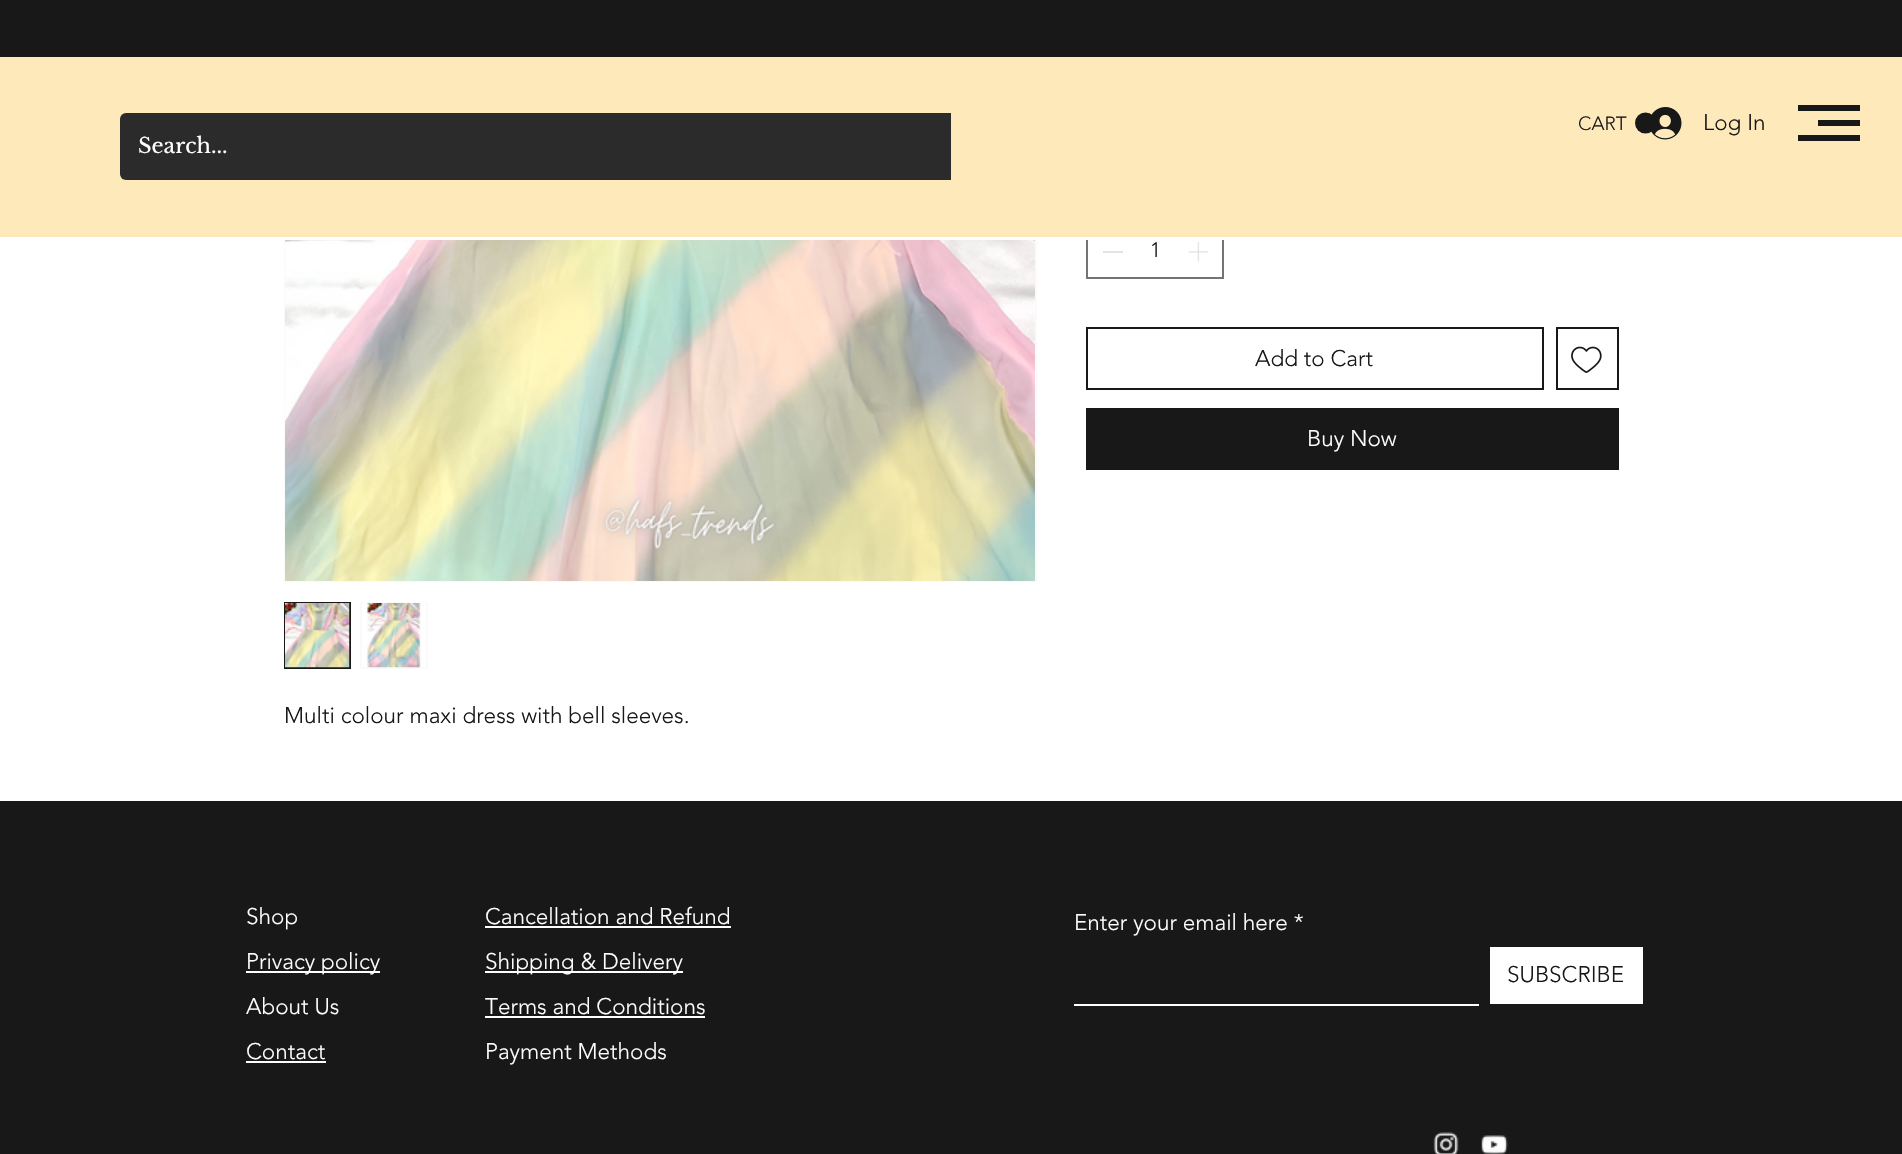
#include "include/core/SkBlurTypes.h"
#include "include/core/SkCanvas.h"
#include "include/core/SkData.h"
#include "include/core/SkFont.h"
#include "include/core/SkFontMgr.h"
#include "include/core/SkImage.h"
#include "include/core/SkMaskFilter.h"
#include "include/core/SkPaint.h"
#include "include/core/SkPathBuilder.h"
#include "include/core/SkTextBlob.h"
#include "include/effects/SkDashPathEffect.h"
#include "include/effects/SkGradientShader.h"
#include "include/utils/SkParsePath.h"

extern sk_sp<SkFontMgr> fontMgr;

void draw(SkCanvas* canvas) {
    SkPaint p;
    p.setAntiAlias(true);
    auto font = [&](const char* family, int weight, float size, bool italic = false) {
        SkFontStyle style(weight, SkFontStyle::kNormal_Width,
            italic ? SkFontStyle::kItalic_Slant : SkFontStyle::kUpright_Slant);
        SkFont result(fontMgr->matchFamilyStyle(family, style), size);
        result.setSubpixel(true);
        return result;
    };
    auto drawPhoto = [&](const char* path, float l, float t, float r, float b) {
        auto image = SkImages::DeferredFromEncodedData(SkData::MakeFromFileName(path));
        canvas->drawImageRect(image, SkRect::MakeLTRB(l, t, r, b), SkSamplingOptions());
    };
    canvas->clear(0xFFFFFFFF);
    p.setStyle(SkPaint::kStroke_Style);
    p.setStrokeWidth(2);
    p.setColor(0xFFFAFAFA);
    canvas->drawRect(SkRect::MakeLTRB(285, -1, 1036, 581), p);
    p.setStyle(SkPaint::kFill_Style);
    p.setColor(0xFF181818);
    canvas->drawRect(SkRect::MakeLTRB(0, 0, 1902, 57), p);
    p.setColor(0xFFFEE9BB);
    canvas->drawRect(SkRect::MakeLTRB(0, 57, 951, 237), p);
    p.setColor(0xFF2B2B2B);
    canvas->drawRoundRect(SkRect::MakeLTRB(120, 113, 1380, 180), 6, 6, p);
    p.setStyle(SkPaint::kStroke_Style);
    p.setColor(0xFF747474);
    canvas->drawRect(SkRect::MakeLTRB(1087, 225, 1223, 278), p);
    p.setStyle(SkPaint::kFill_Style);
    p.setColor(0xFFFEE9BB);
    canvas->drawRect(SkRect::MakeLTRB(951, 57, 1902, 237), p);
    p.setColor(0xFF181818);
    canvas->drawCircle(1645.5f, 123, 10.5f, p);
    auto font1 = font("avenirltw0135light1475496", 300, 19);
    canvas->drawString("CART", 1578, 130, font1, p);
    drawPhoto("media/1.png", 1651, 107, 1682, 140);
    auto font2 = font("avenirltw0135light1475496", 300, 22.5f);
    canvas->drawString("Log In", 1703, 130, font2, p);
    {
        const struct { float l, t, r, b; SkColor color; } items[] = {
            {1798, 105, 1860, 111, 0xFF181818},
            {1818, 120, 1860, 126, 0xFF181818},
            {1798, 135, 1860, 141, 0xFF181818},
        };
        for (auto [l, t, r, b, color] : items) {
            p.setColor(color);
            canvas->drawRect(SkRect::MakeLTRB(l, t, r, b), p);
        }
    }
    auto font3 = font("Libre Baskerville", 400, 21);
    p.setColor(0xFFFFFFFF);
    canvas->drawString("Search...", 138, 153, font3, p);
    canvas->drawRect(SkRect::MakeLTRB(284, 237, 1224, 240), p);
    p.setColor(0xFFE3E3E3);
    canvas->drawRect(SkRect::MakeLTRB(1103, 251, 1123, 253), p);
    auto font4 = font("avenirltw0135light1475496", 300, 21);
    p.setColor(0xFF181818);
    canvas->drawString("1", 1150, 257, font4, p);
    drawPhoto("media/2.png", 1188, 242, 1209, 262);
    p.setStyle(SkPaint::kStroke_Style);
    canvas->drawRect(SkRect::MakeLTRB(1087, 328, 1543, 389), p);
    p.setStyle(SkPaint::kFill_Style);
    canvas->drawString("Add to Cart", 1255, 366, font2, p);
    p.setStyle(SkPaint::kStroke_Style);
    canvas->drawRect(SkRect::MakeLTRB(1557, 328, 1618, 389), p);
    drawPhoto("media/3.png", 1571, 346, 1602, 373);
    p.setStyle(SkPaint::kFill_Style);
    canvas->drawRect(SkRect::MakeLTRB(1086, 408, 1619, 470), p);
    p.setColor(0xFFFFFFFF);
    canvas->drawString("Buy Now", 1307, 446, font2, p);
    drawPhoto("media/4.png", 285, 240, 1035, 581);
    p.setStyle(SkPaint::kStroke_Style);
    p.setColor(0xFF181818);
    canvas->drawRect(SkRect::MakeLTRB(285, 603, 350, 668), p);
    drawPhoto("media/5.png", 285, 603, 350, 668);
    p.setColor(0xFFFAFAFA);
    canvas->drawRect(SkRect::MakeLTRB(361, 603, 427, 668), p);
    drawPhoto("media/6.png", 362, 603, 426, 668);
    p.setStyle(SkPaint::kFill_Style);
    p.setColor(0xFF181818);
    canvas->drawString("Multi colour maxi dress with bell sleeves.", 284, 723, font2, p);
    canvas->drawRect(SkRect::MakeLTRB(0, 801, 1902, 1154), p);
    p.setColor(0xFFFFFFFF);
    canvas->drawString("Shop", 246, 924, font2, p);
    canvas->drawRect(SkRect::MakeLTRB(246, 971, 380, 973), p);
    {
        const struct { const char* s; float x, y; } items[] = {
            {"Privacy policy", 246, 969},
            {"About Us", 246, 1014},
            {"Contact", 246, 1059},
        };
        for (auto [s, x, y] : items) {
            canvas->drawString(s, x, y, font2, p);
        }
    }
    canvas->drawRect(SkRect::MakeLTRB(246, 1061, 326, 1063), p);
    canvas->drawString("Cancellation and Refund", 485, 924, font2, p);
    canvas->drawRect(SkRect::MakeLTRB(485, 926, 731, 928), p);
    canvas->drawRect(SkRect::MakeLTRB(485, 971, 683, 973), p);
    canvas->drawString("Shipping & Delivery", 485, 969, font2, p);
    canvas->drawString("Terms and Conditions", 485, 1014, font2, p);
    canvas->drawRect(SkRect::MakeLTRB(485, 1016, 705, 1018), p);
    canvas->drawString("Payment Methods", 485, 1059, font2, p);
    canvas->drawString("Enter your email here *", 1074, 930, font2, p);
    canvas->drawRect(SkRect::MakeLTRB(1074, 1004, 1479, 1006), p);
    canvas->drawRect(SkRect::MakeLTRB(1490, 947, 1643, 1004), p);
    p.setColor(0xFF181818);
    canvas->drawString("SUBSCRIBE", 1507, 982, font2, p);
    drawPhoto("media/7.png", 1433, 1132, 1459, 1154);
    drawPhoto("media/8.png", 1481, 1135, 1508, 1154);
}
